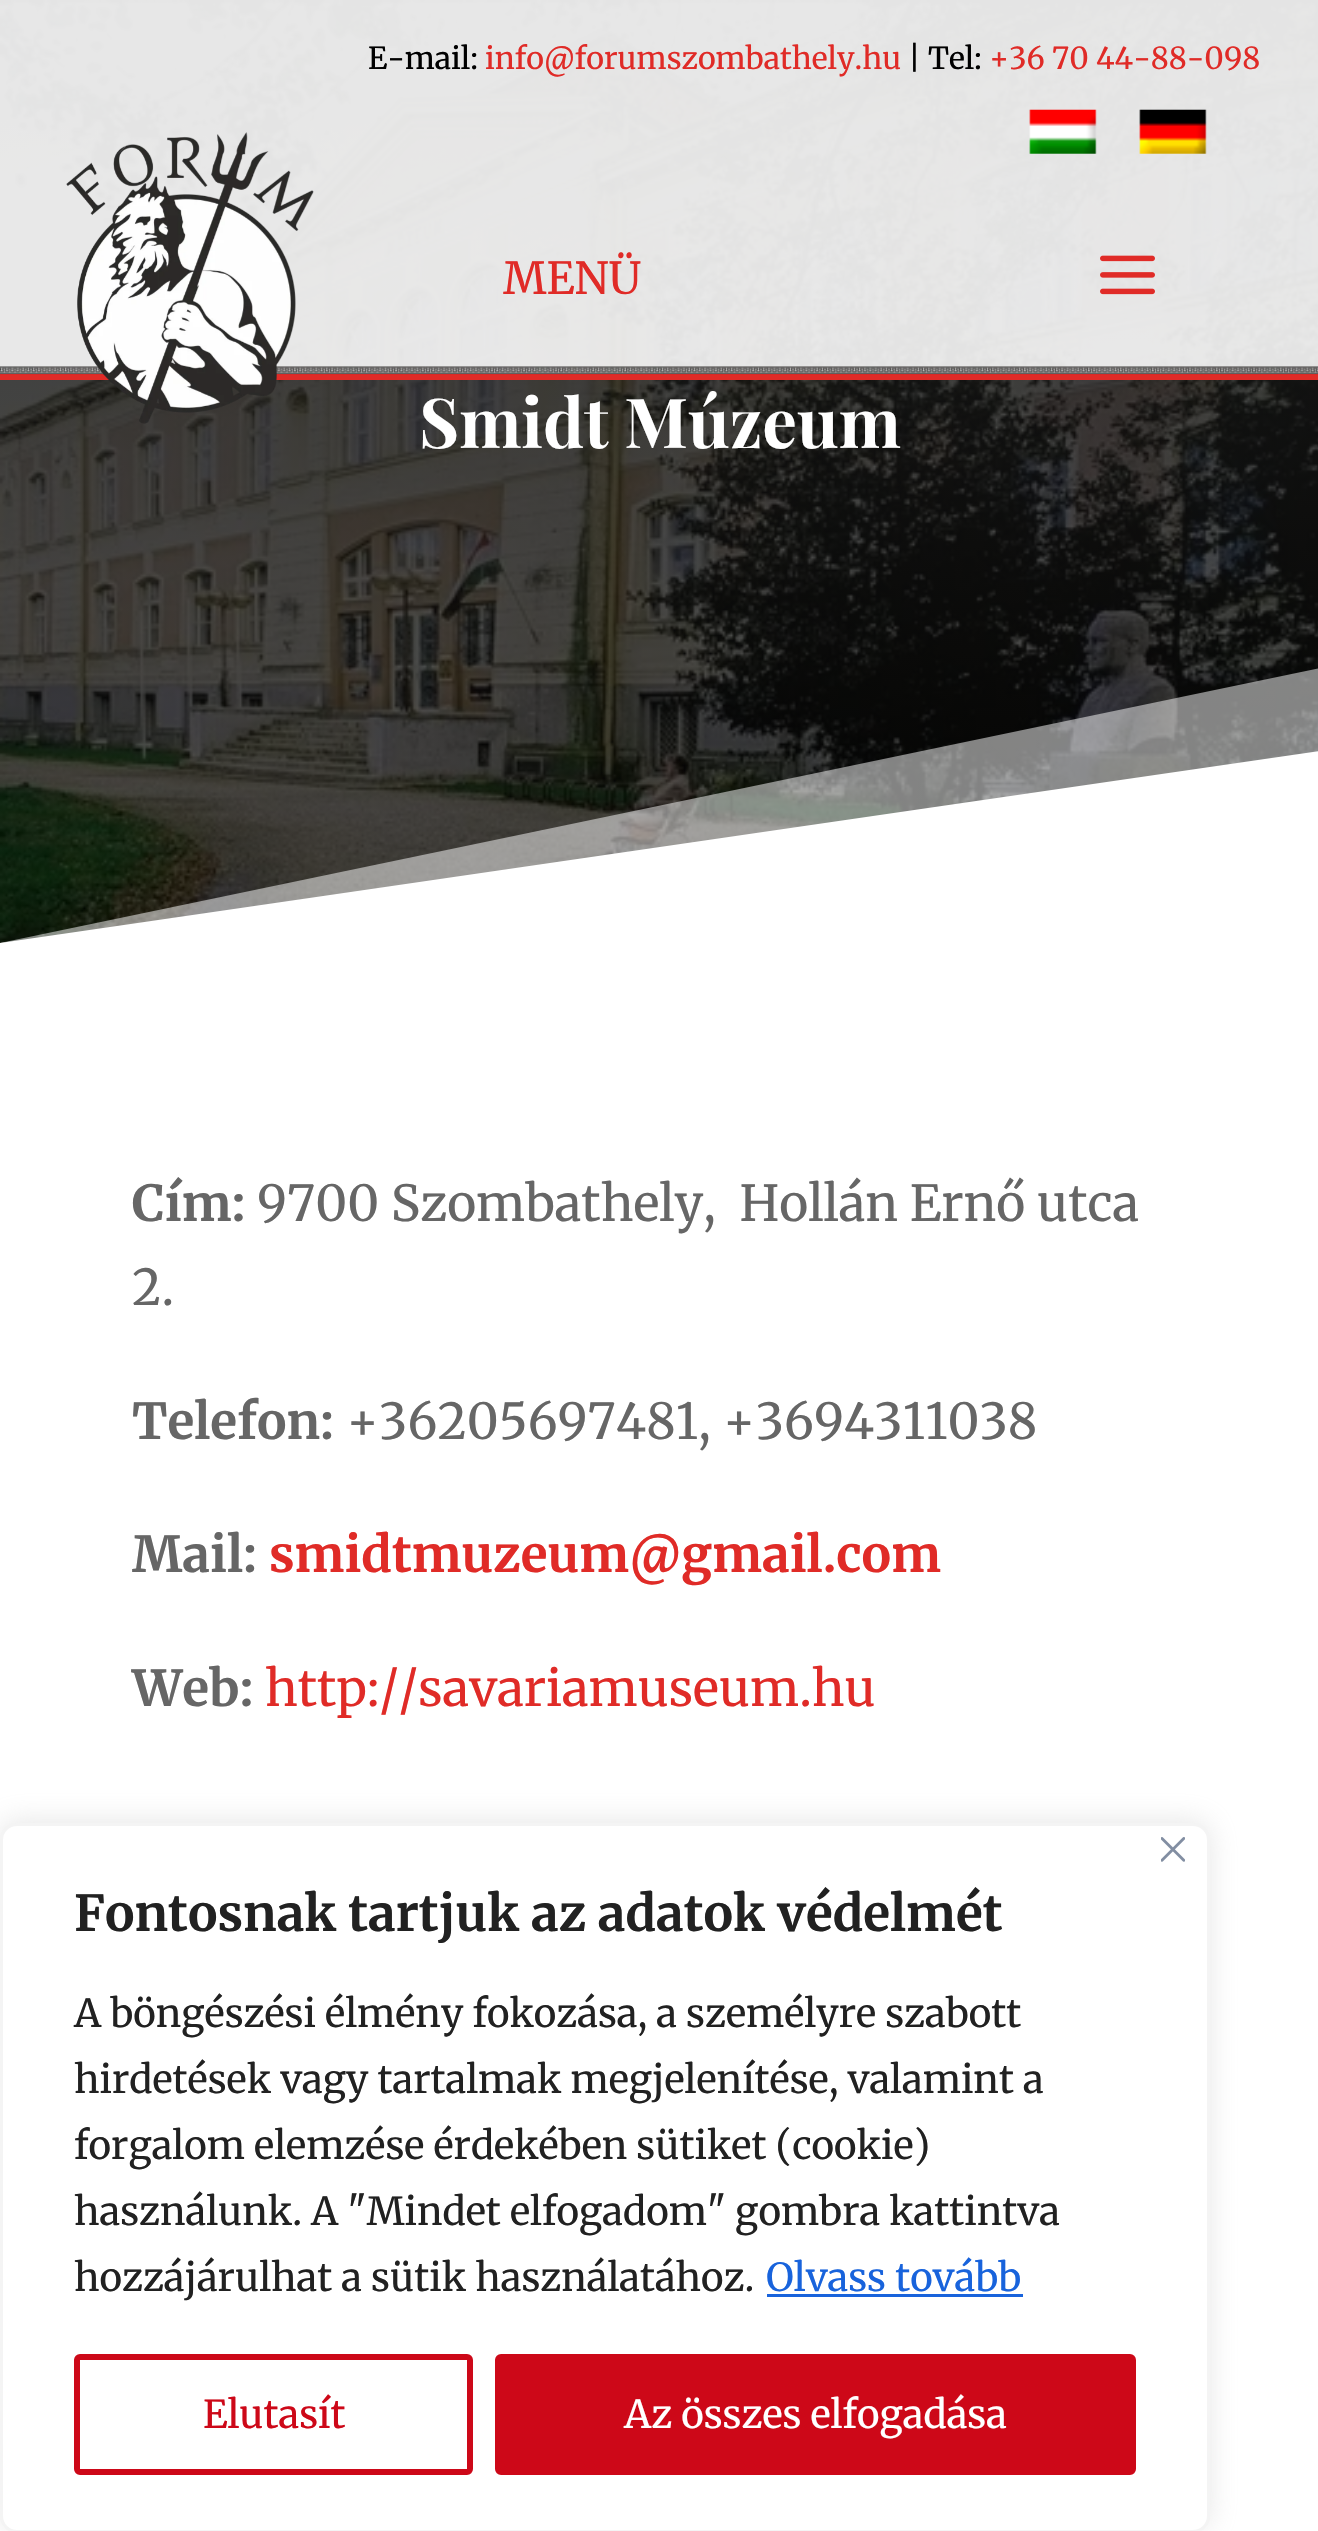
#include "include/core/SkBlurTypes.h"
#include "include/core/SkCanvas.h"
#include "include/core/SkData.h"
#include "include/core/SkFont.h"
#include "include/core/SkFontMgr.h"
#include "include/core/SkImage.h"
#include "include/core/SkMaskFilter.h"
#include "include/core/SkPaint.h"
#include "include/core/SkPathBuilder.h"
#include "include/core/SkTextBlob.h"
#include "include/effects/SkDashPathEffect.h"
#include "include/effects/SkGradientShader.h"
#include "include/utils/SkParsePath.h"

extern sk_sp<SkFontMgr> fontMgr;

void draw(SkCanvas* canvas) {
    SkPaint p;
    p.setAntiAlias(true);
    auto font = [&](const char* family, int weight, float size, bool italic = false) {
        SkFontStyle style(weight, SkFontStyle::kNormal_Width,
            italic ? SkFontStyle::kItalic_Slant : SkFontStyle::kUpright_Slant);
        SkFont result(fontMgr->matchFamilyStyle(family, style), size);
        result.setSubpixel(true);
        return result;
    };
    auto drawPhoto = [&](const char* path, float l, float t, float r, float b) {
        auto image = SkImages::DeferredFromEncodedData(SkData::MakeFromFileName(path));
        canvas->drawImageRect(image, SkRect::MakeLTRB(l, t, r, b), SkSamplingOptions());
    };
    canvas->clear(0xFFFFFFFF);
    drawPhoto("media/6.png", 0, 0, 1318, 943);
    p.setColor(0xE0FFFFFF);
    canvas->drawRect(SkRect::MakeLTRB(0, 0, 1318, 374), p);
    p.setColor(0xFFE02B27);
    canvas->drawRect(SkRect::MakeLTRB(0, 374, 1318, 380), p);
    auto font1 = font("Merriweather", 400, 30.25f);
    p.setColor(0xFF000000);
    canvas->drawString("E-mail:", 368, 69, font1, p);
    p.setColor(0xFFE02B27);
    canvas->drawString("info@forumszombathely.hu", 485, 69, font1, p);
    p.setColor(0xFF000000);
    canvas->drawString("| Tel:", 908, 69, font1, p);
    p.setColor(0xFFE02B27);
    canvas->drawString("+36 70 44-88-098", 989, 69, font1, p);
    drawPhoto("media/1.png", 1029, 109, 1097, 154);
    drawPhoto("media/2.png", 1139, 109, 1207, 154);
    drawPhoto("media/5.png", 0, 366, 1318, 375);
    drawPhoto("media/3.png", 66, 132, 314, 424);
    auto font2 = font("Merriweather", 400, 44);
    canvas->drawString("MENÜ", 503, 294, font2, p);
    drawPhoto("media/4.png", 1100, 255, 1155, 295);
    auto font3 = font("Playfair Display", 700, 68.75f);
    p.setColor(0xFFFFFFFF);
    canvas->drawString("Smidt Múzeum", 419, 448, font3, p);
    p.setColor(0x80FFFFFF);
    canvas->drawPath(SkPathBuilder().moveTo(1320, 668).lineTo(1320, 943).lineTo(0, 943).close().detach(), p);
    p.setColor(0xFFFFFFFF);
    canvas->drawPath(SkPathBuilder().moveTo(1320, 751).lineTo(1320, 943).lineTo(0, 943).close().detach(), p);
    auto font4 = font("Merriweather", 700, 49.5f);
    p.setColor(0xFF666666);
    canvas->drawString("Cím:", 132, 1221, font4, p);
    auto font5 = font("Merriweather", 400, 49.5f);
    canvas->drawString("9700 Szombathely,  Hollán Ernő utca", 257, 1221, font5, p);
    canvas->drawString("2.", 132, 1305, font5, p);
    canvas->drawString("Telefon:", 132, 1439, font4, p);
    canvas->drawString("+36205697481, +3694311038", 346, 1439, font5, p);
    canvas->drawString("Mail:", 132, 1572, font4, p);
    p.setColor(0xFFE02B27);
    canvas->drawString("smidtmuzeum@gmail.com", 269, 1572, font4, p);
    p.setColor(0xFF666666);
    canvas->drawString("Web:", 132, 1706, font4, p);
    p.setColor(0xFFE02B27);
    canvas->drawString("http://savariamuseum.hu", 265, 1706, font5, p);
    p.setColor(0x4DACABAB);
    p.setMaskFilter(SkMaskFilter::MakeBlur(kNormal_SkBlurStyle, 14));
    canvas->drawRoundRect(SkRect::MakeLTRB(0, 1821, 1210, 2530), 17, 17, p);
    p.setMaskFilter(nullptr);
    p.setColor(0xFFFFFFFF);
    canvas->drawRoundRect(SkRect::MakeLTRB(1.5f, 1824.5f, 1208.5f, 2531.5f), 15.5f, 15.5f, p);
    p.setStyle(SkPaint::kStroke_Style);
    p.setStrokeWidth(3);
    p.setColor(0xFFF4F4F4);
    canvas->drawRoundRect(SkRect::MakeLTRB(1.5f, 1824.5f, 1208.5f, 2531.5f), 15.5f, 15.5f, p);
    drawPhoto("media/7.png", 1161, 1837, 1185, 1862);
    p.setStyle(SkPaint::kFill_Style);
    p.setColor(0xFF212121);
    canvas->drawString("Fontosnak tartjuk az adatok védelmét", 74, 1931, font4, p);
    auto font6 = font("Merriweather", 400, 38.5f);
    {
        const struct { const char* s; float x, y; } items[] = {
            {"A böngészési élmény fokozása, a személyre szabott", 74, 2027},
            {"hirdetések vagy tartalmak megjelenítése, valamint a", 74, 2093},
            {"forgalom elemzése érdekében sütiket (cookie)", 74, 2159},
            {"használunk. A \"Mindet elfogadom\" gombra kattintva", 74, 2225},
            {"hozzájárulhat a sütik használatához.", 74, 2291},
        };
        for (auto [s, x, y] : items) {
            canvas->drawString(s, x, y, font6, p);
        }
    }
    p.setColor(0xFF1863DC);
    canvas->drawString("Olvass tovább", 766, 2291, font6, p);
    canvas->drawRect(SkRect::MakeLTRB(767, 2294, 1023, 2297), p);
    p.setStyle(SkPaint::kStroke_Style);
    p.setStrokeWidth(6);
    p.setColor(0xFFCD0818);
    canvas->drawRoundRect(SkRect::MakeLTRB(77, 2357, 470, 2472), 3, 3, p);
    p.setStyle(SkPaint::kFill_Style);
    canvas->drawString("Elutasít", 203, 2428, font6, p);
    canvas->drawRoundRect(SkRect::MakeLTRB(498, 2357, 1133, 2472), 3, 3, p);
    p.setStyle(SkPaint::kStroke_Style);
    canvas->drawRoundRect(SkRect::MakeLTRB(498, 2357, 1133, 2472), 3, 3, p);
    p.setStyle(SkPaint::kFill_Style);
    p.setColor(0xFFFFFFFF);
    canvas->drawString("Az összes elfogadása", 624, 2428, font6, p);
}
